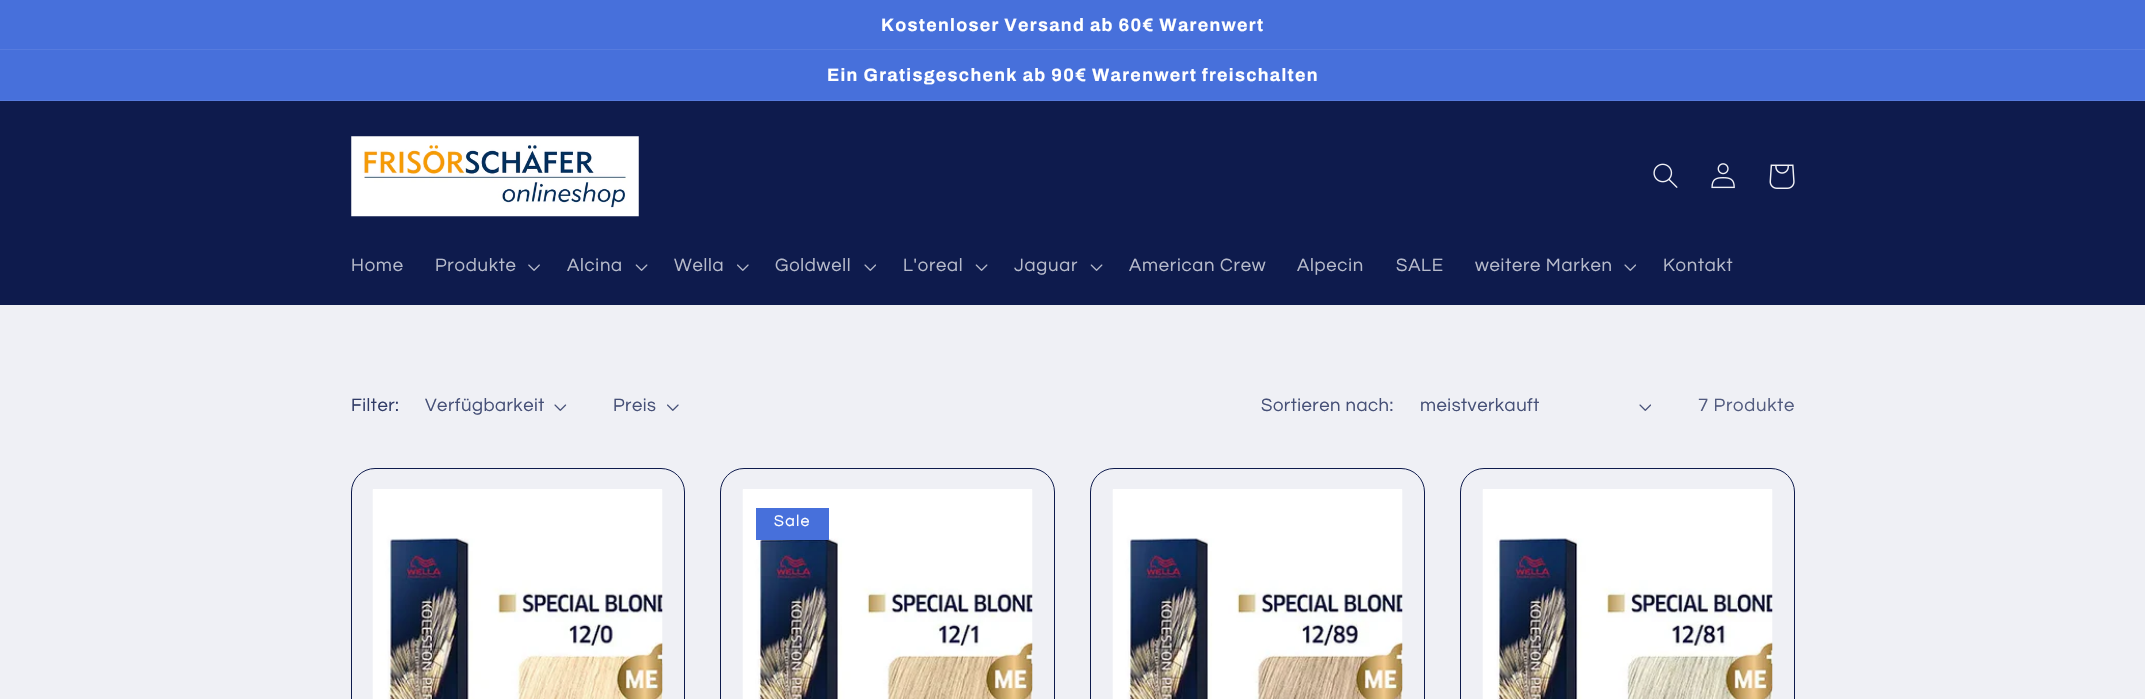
#include "include/core/SkBlurTypes.h"
#include "include/core/SkCanvas.h"
#include "include/core/SkData.h"
#include "include/core/SkFont.h"
#include "include/core/SkFontMgr.h"
#include "include/core/SkImage.h"
#include "include/core/SkMaskFilter.h"
#include "include/core/SkPaint.h"
#include "include/core/SkPathBuilder.h"
#include "include/core/SkTextBlob.h"
#include "include/effects/SkDashPathEffect.h"
#include "include/effects/SkGradientShader.h"
#include "include/utils/SkParsePath.h"

extern sk_sp<SkFontMgr> fontMgr;

void draw(SkCanvas* canvas) {
    SkPaint p;
    p.setAntiAlias(true);
    auto font = [&](const char* family, int weight, float size, bool italic = false) {
        SkFontStyle style(weight, SkFontStyle::kNormal_Width,
            italic ? SkFontStyle::kItalic_Slant : SkFontStyle::kUpright_Slant);
        SkFont result(fontMgr->matchFamilyStyle(family, style), size);
        result.setSubpixel(true);
        return result;
    };
    auto drawTracked = [&](const char* s, float x, float y, const SkFont& font, const SkPaint& ink, float letter, float word) {
        std::vector<SkGlyphID> glyphs(font.countText(s, strlen(s), SkTextEncoding::kUTF8));
        std::vector<float> xs(glyphs.size());
        font.textToGlyphs(s, strlen(s), SkTextEncoding::kUTF8, glyphs);
        font.getXPos(glyphs, xs, x);
        float extra = 0;
        for (size_t i = 0; i < glyphs.size(); i++) {
            xs[i] += extra;
            extra += letter + word * (glyphs[i] == font.unicharToGlyph(' '));
        }
        canvas->drawTextBlob(SkTextBlob::MakeFromPosHGlyphs(glyphs, xs, y, font), 0, 0, ink);
    };
    auto drawPhoto = [&](const char* path, float l, float t, float r, float b) {
        auto image = SkImages::DeferredFromEncodedData(SkData::MakeFromFileName(path));
        canvas->drawImageRect(image, SkRect::MakeLTRB(l, t, r, b), SkSamplingOptions());
    };
    canvas->clear(0xFFEFF0F5);
    p.setColor(0xFF4770DB);
    canvas->drawRect(SkRect::MakeLTRB(0, 0, 2145, 49), p);
    p.setColor(0xFF567BDE);
    canvas->drawRect(SkRect::MakeLTRB(0, 49, 2145, 50), p);
    auto font1 = font("Archivo", 700, 17.9f);
    p.setColor(0xFFFFFFFF);
    drawTracked("Kostenloser Versand ab 60€ Warenwert", 881, 31, font1, p, 1.3f, 0);
    p.setColor(0xFF4770DB);
    canvas->drawRect(SkRect::MakeLTRB(0, 50, 2145, 100), p);
    p.setColor(0xFF567BDE);
    canvas->drawRect(SkRect::MakeLTRB(0, 100, 2145, 101), p);
    p.setColor(0xFFFFFFFF);
    drawTracked("Ein Gratisgeschenk ab 90€ Warenwert freischalten", 827, 81, font1, p, 1.3f, 0);
    p.setColor(0xFF0E1B4D);
    canvas->drawRect(SkRect::MakeLTRB(0, 101, 2145, 305), p);
    drawPhoto("media/1.png", 351, 136, 639, 217);
    drawPhoto("media/2.png", 1653, 163, 1678, 188);
    drawPhoto("media/3.png", 1711, 163, 1735, 189);
    drawPhoto("media/4.png", 1769, 164, 1795, 189);
    auto font2 = font("Questrial", 400, 18.5f);
    p.setColor(0xFFB7BBCB);
    drawTracked("Home", 351, 271, font2, p, 0.75f, 0);
    drawTracked("Produkte", 435, 271, font2, p, 0.75f, 0);
    drawPhoto("media/5.png", 528, 264, 540, 271);
    drawTracked("Alcina", 567, 271, font2, p, 0.75f, 0);
    drawPhoto("media/6.png", 635, 264, 648, 271);
    drawTracked("Wella", 674, 271, font2, p, 0.75f, 0);
    drawPhoto("media/7.png", 737, 264, 749, 271);
    drawTracked("Goldwell", 775, 271, font2, p, 0.75f, 0);
    drawPhoto("media/8.png", 864, 264, 876, 271);
    drawTracked("L'oreal", 903, 271, font2, p, 0.75f, 0);
    drawPhoto("media/6.png", 975, 264, 988, 271);
    drawTracked("Jaguar", 1014, 271, font2, p, 0.75f, 0);
    drawPhoto("media/6.png", 1090, 264, 1103, 271);
    {
        const struct { const char* s; float x, y; } items[] = {
            {"American Crew", 1129, 271},
            {"Alpecin", 1297, 271},
            {"SALE", 1396, 271},
            {"weitere Marken", 1475, 271},
        };
        for (auto [s, x, y] : items) {
            drawTracked(s, x, y, font2, p, 0.75f, 0);
        }
    }
    drawPhoto("media/8.png", 1624, 264, 1636, 271);
    drawTracked("Kontakt", 1663, 271, font2, p, 0.75f, 0);
    p.setColor(0xFF303B66);
    drawTracked("Filter:", 351, 411, font2, p, 0.5f, 0);
    p.setColor(0xFF465077);
    drawTracked("Verfügbarkeit", 425, 411, font2, p, 0.5f, 0);
    drawPhoto("media/9.png", 554, 404, 567, 411);
    drawTracked("Preis", 613, 411, font2, p, 0.5f, 0);
    drawPhoto("media/10.png", 667, 404, 679, 411);
    drawTracked("Sortieren nach:", 1261, 411, font2, p, 0.5f, 0);
    drawTracked("meistverkauft", 1420, 411, font2, p, 0.5f, 0);
    drawPhoto("media/11.png", 1639, 404, 1651, 411);
    p.setColor(0xFF525B7F);
    drawTracked("7 Produkte", 1698, 411, font2, p, 0.75f, 0);
    p.setStyle(SkPaint::kStroke_Style);
    p.setStrokeWidth(1);
    p.setColor(0xFF0E1B4D);
    canvas->drawRoundRect(SkRect::MakeLTRB(351.5f, 468.5f, 684.5f, 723.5f), 23.5f, 23.5f, p);
    drawPhoto("media/12.png", 372, 489, 663, 699);
    canvas->drawRoundRect(SkRect::MakeLTRB(720.5f, 468.5f, 1054.5f, 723.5f), 23.5f, 23.5f, p);
    drawPhoto("media/13.png", 742, 489, 1033, 699);
    p.setStyle(SkPaint::kFill_Style);
    p.setColor(0xFF4770DB);
    canvas->drawRect(SkRect::MakeLTRB(756, 508, 829, 540), p);
    auto font3 = font("Questrial", 400, 16);
    p.setColor(0xFFFFFFFF);
    drawTracked("Sale", 774, 526, font3, p, 1.3f, 0);
    p.setStyle(SkPaint::kStroke_Style);
    p.setColor(0xFF0E1B4D);
    canvas->drawRoundRect(SkRect::MakeLTRB(1090.5f, 468.5f, 1424.5f, 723.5f), 23.5f, 23.5f, p);
    drawPhoto("media/14.png", 1112, 489, 1403, 699);
    canvas->drawRoundRect(SkRect::MakeLTRB(1460.5f, 468.5f, 1794.5f, 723.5f), 23.5f, 23.5f, p);
    drawPhoto("media/15.png", 1482, 489, 1773, 699);
}
